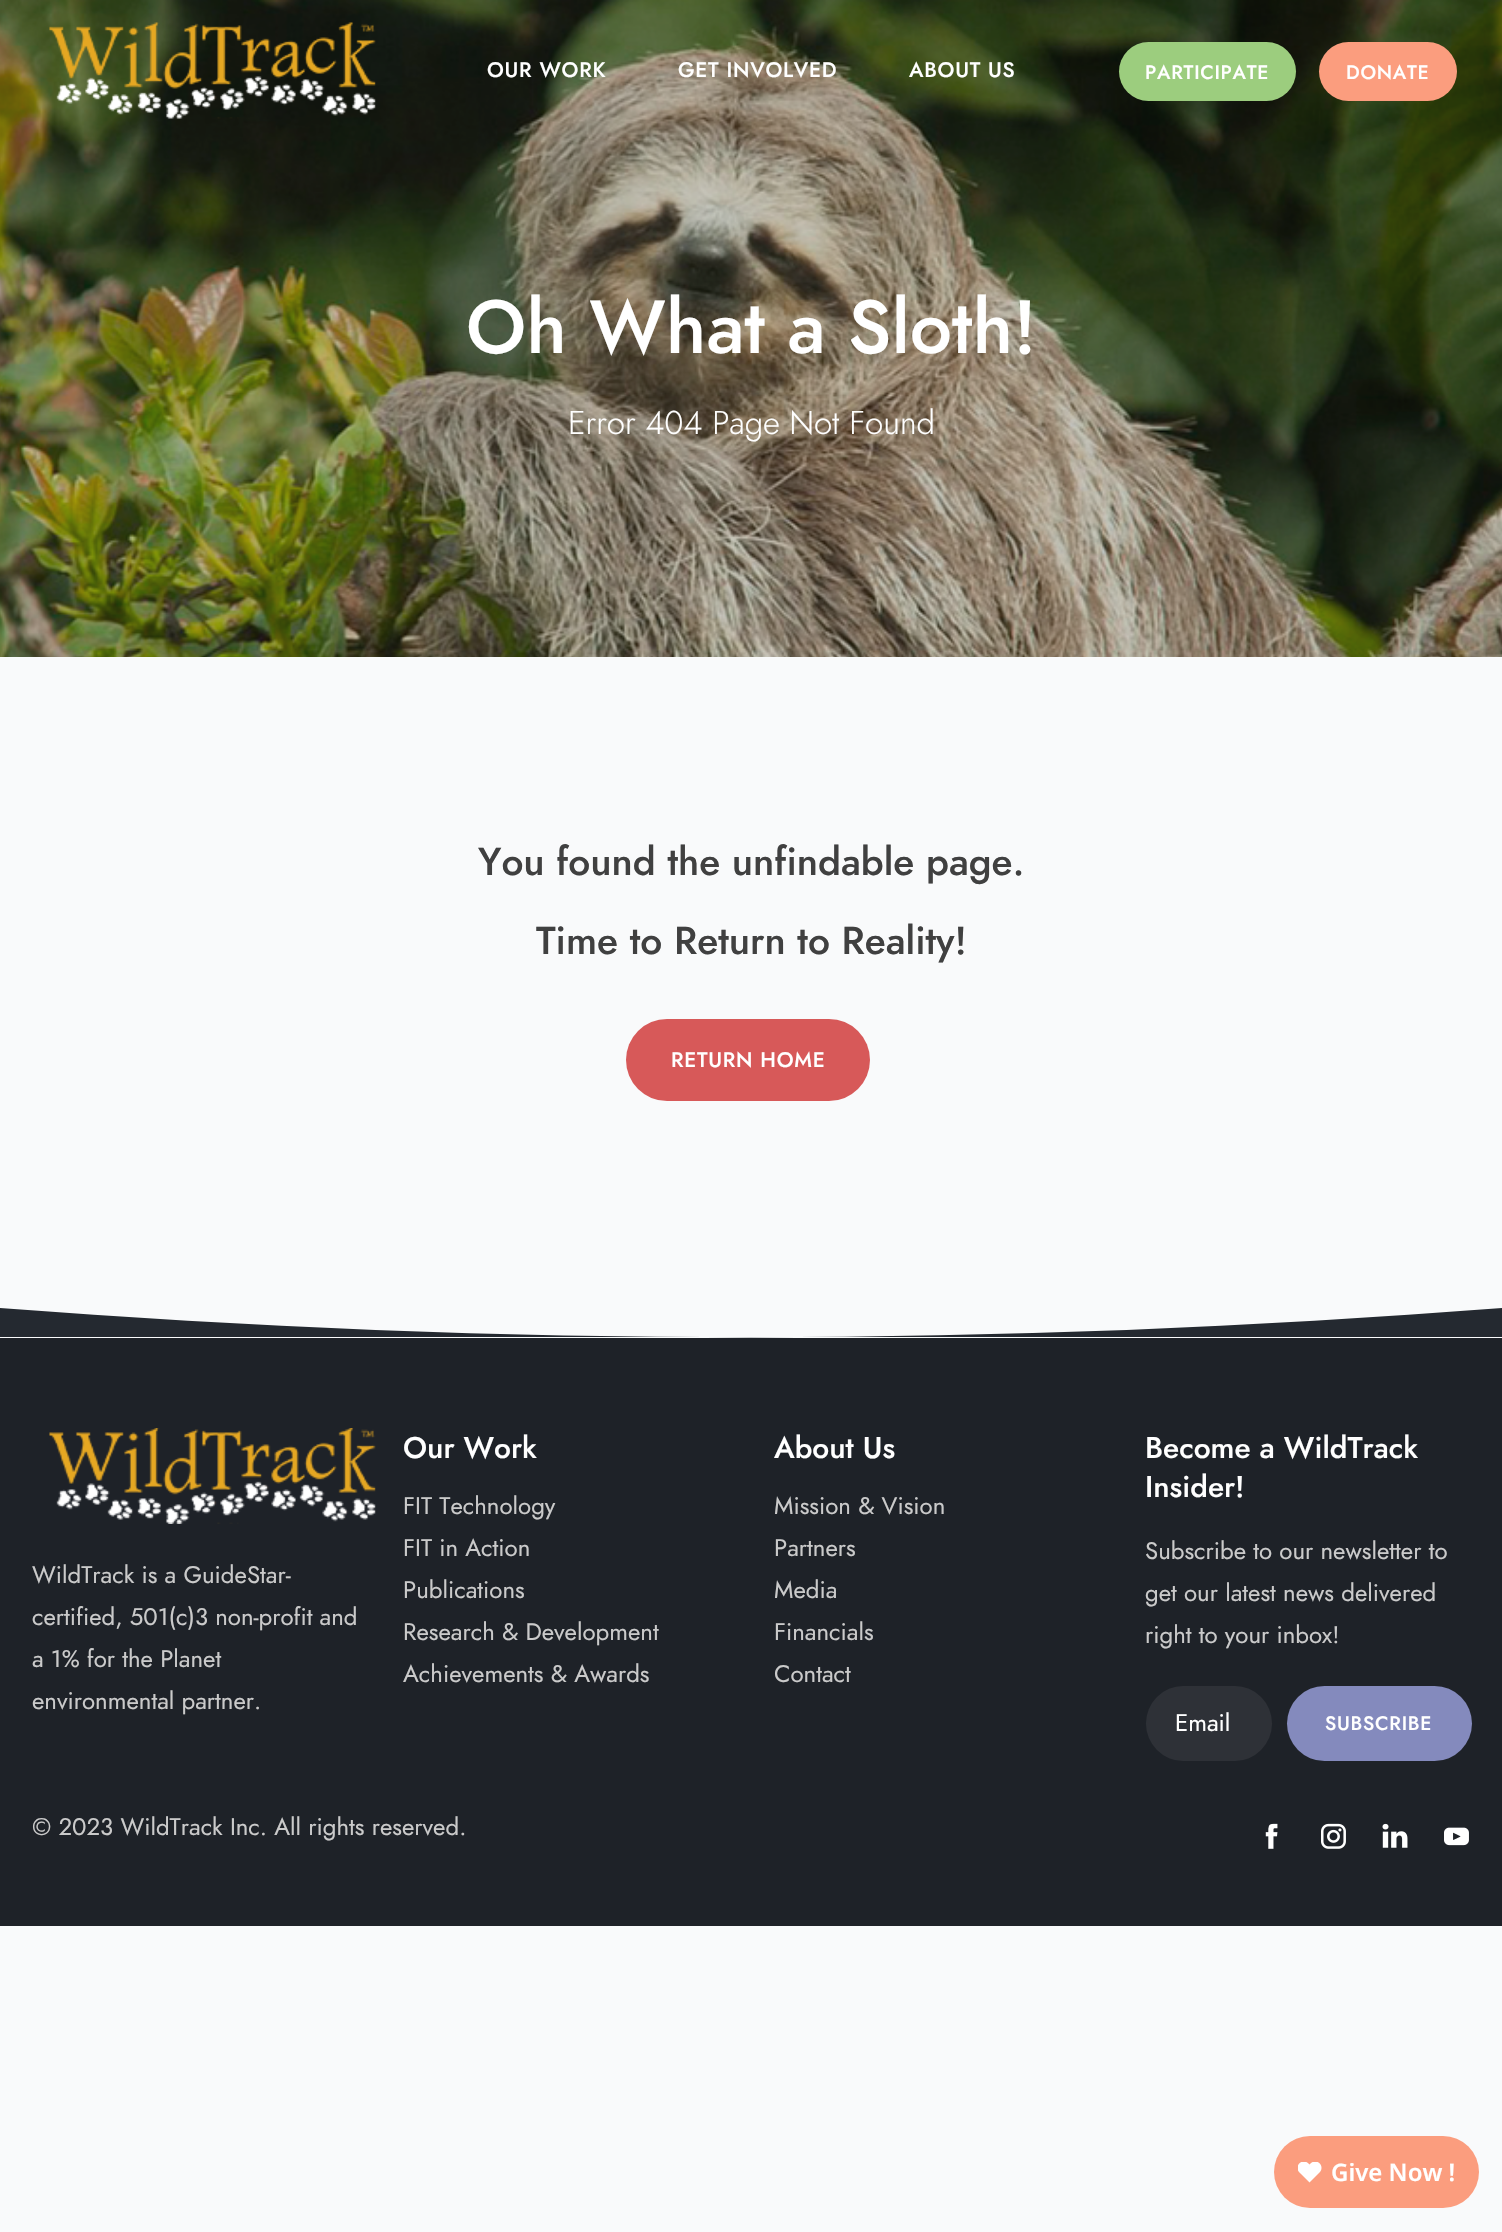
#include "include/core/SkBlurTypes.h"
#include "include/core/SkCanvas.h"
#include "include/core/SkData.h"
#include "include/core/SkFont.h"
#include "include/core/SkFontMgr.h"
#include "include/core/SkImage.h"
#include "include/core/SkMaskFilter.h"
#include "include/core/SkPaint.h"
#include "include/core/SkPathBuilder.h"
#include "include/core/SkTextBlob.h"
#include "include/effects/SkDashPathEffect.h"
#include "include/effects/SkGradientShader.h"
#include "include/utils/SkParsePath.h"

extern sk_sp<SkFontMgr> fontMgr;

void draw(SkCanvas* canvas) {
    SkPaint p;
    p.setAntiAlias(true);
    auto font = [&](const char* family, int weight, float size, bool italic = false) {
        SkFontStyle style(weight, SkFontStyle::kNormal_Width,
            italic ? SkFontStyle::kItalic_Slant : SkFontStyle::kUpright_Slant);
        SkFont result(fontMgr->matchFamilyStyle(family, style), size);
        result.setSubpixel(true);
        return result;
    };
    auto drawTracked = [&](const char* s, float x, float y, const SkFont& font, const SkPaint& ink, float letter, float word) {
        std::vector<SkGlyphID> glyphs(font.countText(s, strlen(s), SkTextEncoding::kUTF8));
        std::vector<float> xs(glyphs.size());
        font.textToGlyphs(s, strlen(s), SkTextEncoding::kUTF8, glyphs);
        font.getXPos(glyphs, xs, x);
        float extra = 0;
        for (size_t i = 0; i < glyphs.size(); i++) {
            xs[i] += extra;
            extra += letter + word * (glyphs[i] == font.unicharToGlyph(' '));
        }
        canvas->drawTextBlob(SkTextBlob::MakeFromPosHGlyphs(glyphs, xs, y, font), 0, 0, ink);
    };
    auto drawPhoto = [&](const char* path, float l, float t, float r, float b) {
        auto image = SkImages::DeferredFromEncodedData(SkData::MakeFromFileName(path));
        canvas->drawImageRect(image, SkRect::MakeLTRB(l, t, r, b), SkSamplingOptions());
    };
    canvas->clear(0xFFF9FAFB);
    drawPhoto("media/2.png", 0, 0, 1502, 657);
    drawPhoto("media/1.png", 49, 22, 376, 119);
    auto font1 = font("Jost", 500, 21);
    p.setColor(0xFFFFFFFF);
    {
        const struct { const char* s; float x, y; } items[] = {
            {"OUR WORK", 487, 77},
            {"GET INVOLVED", 678, 77},
            {"ABOUT US", 909, 77},
        };
        for (auto [s, x, y] : items) {
            drawTracked(s, x, y, font1, p, 0.75f, 0);
        }
    }
    p.setColor(0xFF9CCD7E);
    canvas->drawRoundRect(SkRect::MakeLTRB(1119, 42, 1296, 101), 29.5f, 29.5f, p);
    auto font2 = font("Jost", 500, 19.5f);
    p.setColor(0xFFFFFFFF);
    drawTracked("PARTICIPATE", 1145, 79, font2, p, 0.75f, 0);
    p.setColor(0xFFFB9D7E);
    canvas->drawRoundRect(SkRect::MakeLTRB(1319, 42, 1457, 101), 29.5f, 29.5f, p);
    p.setColor(0xFFFFFFFF);
    drawTracked("DONATE", 1346, 79, font2, p, 0.75f, 0);
    auto font3 = font("Jost", 500, 75);
    canvas->drawString("Oh What a Sloth!", 466, 353, font3, p);
    auto font4 = font("Jost", 300, 33);
    canvas->drawString("Error 404 Page Not Found", 568, 434, font4, p);
    auto font5 = font("Jost", 500, 39);
    p.setColor(0xFF404040);
    canvas->drawString("You found the unfindable page.", 478, 875, font5, p);
    canvas->drawString("Time to Return to Reality!", 536, 954, font5, p);
    p.setColor(0xFFD75959);
    canvas->drawRoundRect(SkRect::MakeLTRB(626, 1019, 870, 1101), 41, 41, p);
    p.setColor(0xFFFFFFFF);
    drawTracked("RETURN HOME", 671, 1067, font1, p, 0.75f, 0);
    p.setColor(0xFF242930);
    canvas->drawPath(SkPathBuilder().moveTo(0, 1308).lineTo(0, 1337).lineTo(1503, 1337).lineTo(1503, 1308).cubicTo(1002, 1347, 500, 1347, 0, 1308).close().detach(), p);
    p.setColor(0xFF1E2228);
    canvas->drawRect(SkRect::MakeLTRB(0, 1338, 1502, 1926), p);
    drawPhoto("media/3.png", 49, 1428, 376, 1524);
    auto font6 = font("Jost", 400, 24);
    p.setColor(0xFFCACACA);
    {
        const struct { const char* s; float x, y; } items[] = {
            {"WildTrack is a GuideStar-", 32, 1583},
            {"certified, 501(c)3 non-profit and", 32, 1625},
            {"a 1% for the Planet", 32, 1667},
            {"environmental partner.", 32, 1709},
        };
        for (auto [s, x, y] : items) {
            canvas->drawString(s, x, y, font6, p);
        }
    }
    auto font7 = font("Jost", 500, 30);
    p.setColor(0xFFFFFFFF);
    canvas->drawString("Our Work", 403, 1458, font7, p);
    p.setColor(0xFFCACACA);
    {
        const struct { const char* s; float x, y; } items[] = {
            {"FIT Technology", 403, 1514},
            {"FIT in Action", 403, 1556},
            {"Publications", 403, 1598},
            {"Research & Development", 403, 1640},
            {"Achievements & Awards", 403, 1682},
        };
        for (auto [s, x, y] : items) {
            canvas->drawString(s, x, y, font6, p);
        }
    }
    p.setColor(0xFFFFFFFF);
    canvas->drawString("About Us", 774, 1458, font7, p);
    p.setColor(0xFFCACACA);
    {
        const struct { const char* s; float x, y; } items[] = {
            {"Mission & Vision", 774, 1514},
            {"Partners", 774, 1556},
            {"Media", 774, 1598},
            {"Financials", 774, 1640},
            {"Contact", 774, 1682},
        };
        for (auto [s, x, y] : items) {
            canvas->drawString(s, x, y, font6, p);
        }
    }
    p.setColor(0xFFFFFFFF);
    canvas->drawString("Become a WildTrack", 1145, 1458, font7, p);
    canvas->drawString("Insider!", 1145, 1497, font7, p);
    p.setColor(0xFFCACACA);
    {
        const struct { const char* s; float x, y; } items[] = {
            {"Subscribe to our newsletter to", 1145, 1559},
            {"get our latest news delivered", 1145, 1601},
            {"right to your inbox!", 1145, 1643},
        };
        for (auto [s, x, y] : items) {
            canvas->drawString(s, x, y, font6, p);
        }
    }
    p.setColor(0xFF2E3137);
    canvas->drawRoundRect(SkRect::MakeLTRB(1146, 1686, 1272, 1761), 37.5f, 37.5f, p);
    p.setColor(0xFFFFFFFF);
    canvas->drawString("Email", 1175, 1731, font6, p);
    p.setColor(0xFF848ABD);
    canvas->drawRoundRect(SkRect::MakeLTRB(1287, 1686, 1472, 1761), 37.5f, 37.5f, p);
    p.setColor(0xFFFFFFFF);
    drawTracked("SUBSCRIBE", 1325, 1730, font2, p, 0.75f, 0);
    p.setColor(0xFFCACACA);
    canvas->drawString("© 2023 WildTrack Inc. All rights reserved.", 32, 1835, font6, p);
    drawPhoto("media/4.png", 1265, 1823, 1278, 1849);
    drawPhoto("media/5.png", 1321, 1823, 1346, 1849);
    drawPhoto("media/6.png", 1382, 1823, 1408, 1848);
    drawPhoto("media/7.png", 1444, 1827, 1469, 1846);
    p.setColor(0xFFFB9D7E);
    canvas->drawRoundRect(SkRect::MakeLTRB(1274, 2136, 1479, 2208), 36, 36, p);
    drawPhoto("media/8.png", 1298, 2162, 1322, 2183);
    auto font8 = font("Noto Sans", 600, 24);
    p.setColor(0xFFFFFFFF);
    canvas->drawString("Give Now !", 1331, 2181, font8, p);
}
